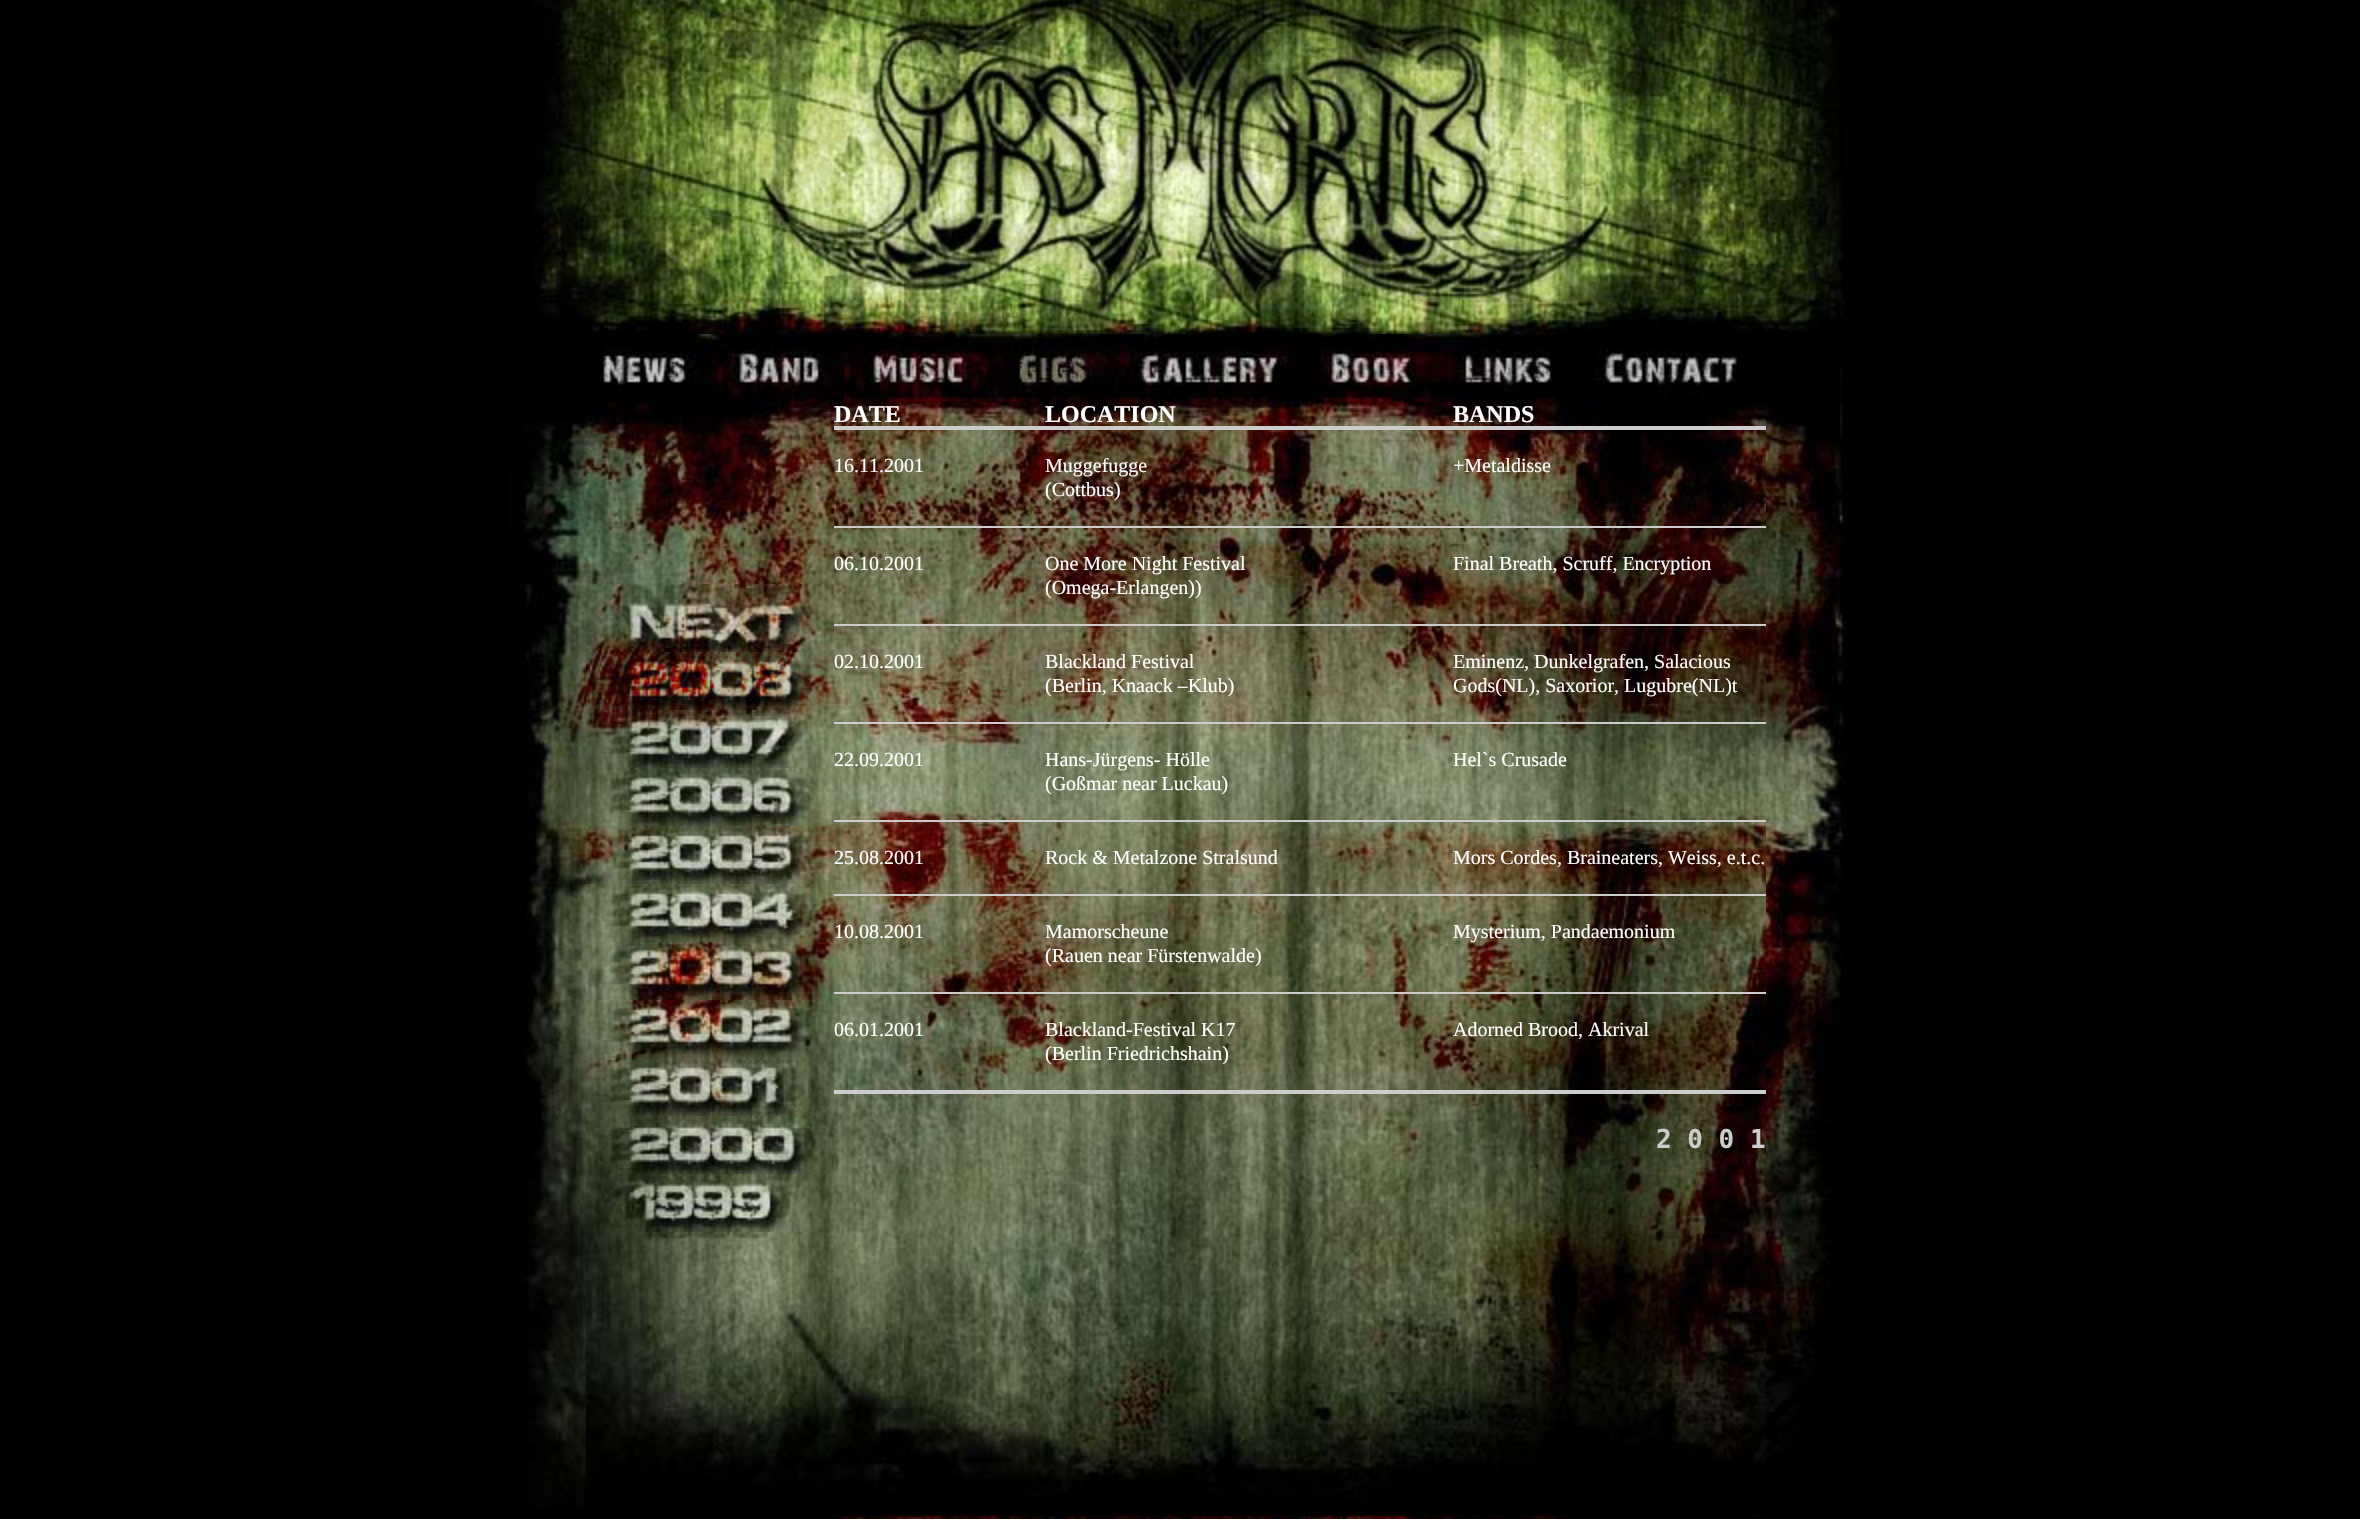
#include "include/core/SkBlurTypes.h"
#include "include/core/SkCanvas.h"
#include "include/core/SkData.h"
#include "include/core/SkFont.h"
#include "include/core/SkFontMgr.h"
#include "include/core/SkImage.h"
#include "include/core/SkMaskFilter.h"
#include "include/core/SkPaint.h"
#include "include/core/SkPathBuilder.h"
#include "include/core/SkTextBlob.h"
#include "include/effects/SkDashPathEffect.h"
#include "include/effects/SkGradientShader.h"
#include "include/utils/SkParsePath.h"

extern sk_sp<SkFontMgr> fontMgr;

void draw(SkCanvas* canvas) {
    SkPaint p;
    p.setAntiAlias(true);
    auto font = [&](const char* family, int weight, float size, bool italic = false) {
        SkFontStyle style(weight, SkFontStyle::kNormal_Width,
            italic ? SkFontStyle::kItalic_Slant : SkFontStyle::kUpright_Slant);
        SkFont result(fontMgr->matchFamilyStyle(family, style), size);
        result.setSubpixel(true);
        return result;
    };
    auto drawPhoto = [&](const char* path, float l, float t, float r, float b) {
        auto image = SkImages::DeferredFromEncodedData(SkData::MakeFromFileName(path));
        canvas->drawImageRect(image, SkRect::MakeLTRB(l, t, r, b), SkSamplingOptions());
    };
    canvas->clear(0xFF000000);
    drawPhoto("media/1.png", 533, 0, 1852, 334);
    drawPhoto("media/2.png", 602, 334, 712, 396);
    drawPhoto("media/3.png", 712, 334, 844, 402);
    drawPhoto("media/4.png", 844, 334, 988, 402);
    drawPhoto("media/5.png", 988, 334, 1114, 402);
    drawPhoto("media/6.png", 1114, 334, 1293, 402);
    drawPhoto("media/7.png", 1310, 334, 1440, 402);
    drawPhoto("media/8.png", 1440, 334, 1557, 402);
    drawPhoto("media/9.png", 1594, 350, 1738, 398);
    drawPhoto("media/10.png", 1840, 366, 1842, 402);
    drawPhoto("media/11.png", 508, 420, 586, 1509);
    drawPhoto("media/12.png", 834, 402, 1766, 1519);
    drawPhoto("media/13.png", 586, 584, 834, 652);
    drawPhoto("media/14.png", 586, 402, 834, 584);
    auto font1 = font("Liberation Serif", 700, 24);
    p.setColor(0xFFFFFFFF);
    {
        const struct { const char* s; float x, y; } items[] = {
            {"DATE", 834, 422},
            {"LOCATION", 1045, 422},
            {"BANDS", 1453, 422},
        };
        for (auto [s, x, y] : items) {
            canvas->drawString(s, x, y, font1, p);
        }
    }
    p.setColor(0xFFCCCCCC);
    canvas->drawRect(SkRect::MakeLTRB(834, 426, 1766, 430), p);
    auto font2 = font("Liberation Serif", 400, 20);
    p.setColor(0xFFFFFFFF);
    {
        const struct { const char* s; float x, y; } items[] = {
            {"16.11.2001", 834, 472},
            {"Muggefugge", 1045, 472},
            {"(Cottbus)", 1045, 496},
            {"+Metaldisse", 1453, 472},
        };
        for (auto [s, x, y] : items) {
            canvas->drawString(s, x, y, font2, p);
        }
    }
    p.setColor(0xFFCCCCCC);
    canvas->drawRect(SkRect::MakeLTRB(834, 526, 1766, 528), p);
    p.setColor(0xFFFFFFFF);
    {
        const struct { const char* s; float x, y; } items[] = {
            {"06.10.2001", 834, 570},
            {"One More Night Festival", 1045, 570},
            {"(Omega-Erlangen))", 1045, 594},
            {"Final Breath, Scruff, Encryption", 1453, 570},
        };
        for (auto [s, x, y] : items) {
            canvas->drawString(s, x, y, font2, p);
        }
    }
    p.setColor(0xFFCCCCCC);
    canvas->drawRect(SkRect::MakeLTRB(834, 624, 1766, 626), p);
    p.setColor(0xFFFFFFFF);
    {
        const struct { const char* s; float x, y; } items[] = {
            {"02.10.2001", 834, 668},
            {"Blackland Festival", 1045, 668},
            {"(Berlin, Knaack –Klub)", 1045, 692},
            {"Eminenz, Dunkelgrafen, Salacious", 1453, 668},
            {"Gods(NL), Saxorior, Lugubre(NL)t", 1453, 692},
        };
        for (auto [s, x, y] : items) {
            canvas->drawString(s, x, y, font2, p);
        }
    }
    p.setColor(0xFFCCCCCC);
    canvas->drawRect(SkRect::MakeLTRB(834, 722, 1766, 724), p);
    p.setColor(0xFFFFFFFF);
    {
        const struct { const char* s; float x, y; } items[] = {
            {"22.09.2001", 834, 766},
            {"Hans-Jürgens- Hölle", 1045, 766},
            {"(Goßmar near Luckau)", 1045, 790},
            {"Hel`s Crusade", 1453, 766},
        };
        for (auto [s, x, y] : items) {
            canvas->drawString(s, x, y, font2, p);
        }
    }
    p.setColor(0xFFCCCCCC);
    canvas->drawRect(SkRect::MakeLTRB(834, 820, 1766, 822), p);
    p.setColor(0xFFFFFFFF);
    {
        const struct { const char* s; float x, y; } items[] = {
            {"25.08.2001", 834, 864},
            {"Rock & Metalzone Stralsund", 1045, 864},
            {"Mors Cordes, Braineaters, Weiss, e.t.c.", 1453, 864},
        };
        for (auto [s, x, y] : items) {
            canvas->drawString(s, x, y, font2, p);
        }
    }
    p.setColor(0xFFCCCCCC);
    canvas->drawRect(SkRect::MakeLTRB(834, 894, 1766, 896), p);
    p.setColor(0xFFFFFFFF);
    {
        const struct { const char* s; float x, y; } items[] = {
            {"10.08.2001", 834, 938},
            {"Mamorscheune", 1045, 938},
            {"(Rauen near Fürstenwalde)", 1045, 962},
            {"Mysterium, Pandaemonium", 1453, 938},
        };
        for (auto [s, x, y] : items) {
            canvas->drawString(s, x, y, font2, p);
        }
    }
    p.setColor(0xFFCCCCCC);
    canvas->drawRect(SkRect::MakeLTRB(834, 992, 1766, 994), p);
    p.setColor(0xFFFFFFFF);
    {
        const struct { const char* s; float x, y; } items[] = {
            {"06.01.2001", 834, 1036},
            {"Blackland-Festival K17", 1045, 1036},
            {"(Berlin Friedrichshain)", 1045, 1060},
            {"Adorned Brood, Akrival", 1453, 1036},
        };
        for (auto [s, x, y] : items) {
            canvas->drawString(s, x, y, font2, p);
        }
    }
    p.setColor(0xFFCCCCCC);
    canvas->drawRect(SkRect::MakeLTRB(834, 1090, 1766, 1094), p);
    auto font3 = font("DejaVu Sans Mono", 700, 26);
    canvas->drawString("2 0 0 1", 1656, 1148, font3, p);
    drawPhoto("media/15.png", 586, 652, 834, 710);
    drawPhoto("media/16.png", 586, 710, 834, 768);
    drawPhoto("media/17.png", 586, 768, 834, 826);
    drawPhoto("media/18.png", 586, 826, 834, 884);
    drawPhoto("media/19.png", 586, 884, 834, 942);
    drawPhoto("media/20.png", 586, 942, 834, 1000);
    drawPhoto("media/21.png", 586, 1000, 834, 1058);
    drawPhoto("media/22.png", 586, 1058, 834, 1116);
    drawPhoto("media/23.png", 586, 1116, 834, 1174);
    drawPhoto("media/24.png", 586, 1174, 834, 1232);
    drawPhoto("media/25.png", 586, 1232, 834, 1519);
    drawPhoto("media/26.png", 1766, 404, 1847, 1457);
}
